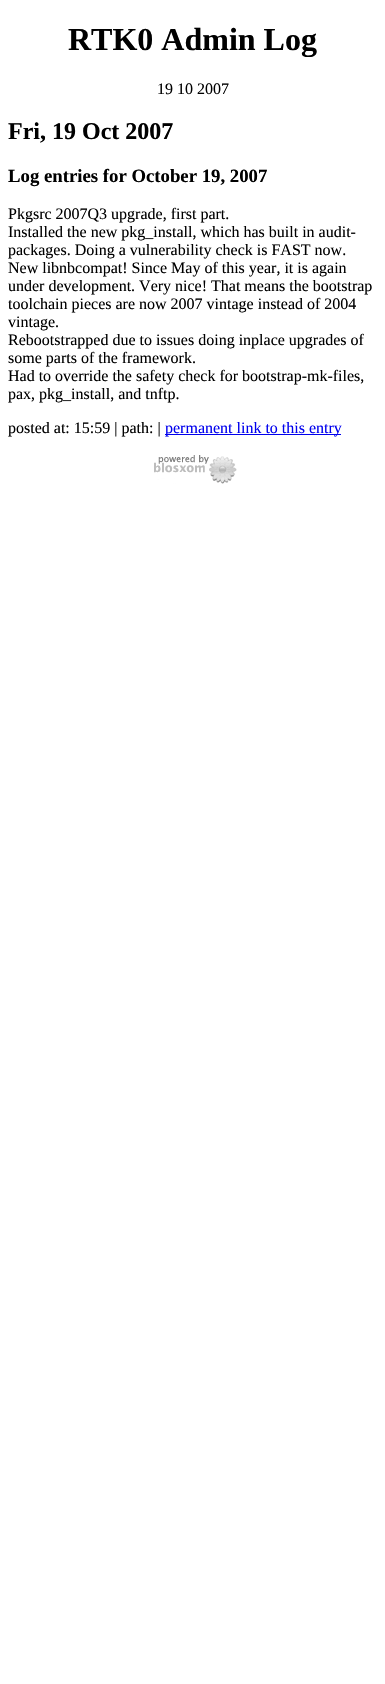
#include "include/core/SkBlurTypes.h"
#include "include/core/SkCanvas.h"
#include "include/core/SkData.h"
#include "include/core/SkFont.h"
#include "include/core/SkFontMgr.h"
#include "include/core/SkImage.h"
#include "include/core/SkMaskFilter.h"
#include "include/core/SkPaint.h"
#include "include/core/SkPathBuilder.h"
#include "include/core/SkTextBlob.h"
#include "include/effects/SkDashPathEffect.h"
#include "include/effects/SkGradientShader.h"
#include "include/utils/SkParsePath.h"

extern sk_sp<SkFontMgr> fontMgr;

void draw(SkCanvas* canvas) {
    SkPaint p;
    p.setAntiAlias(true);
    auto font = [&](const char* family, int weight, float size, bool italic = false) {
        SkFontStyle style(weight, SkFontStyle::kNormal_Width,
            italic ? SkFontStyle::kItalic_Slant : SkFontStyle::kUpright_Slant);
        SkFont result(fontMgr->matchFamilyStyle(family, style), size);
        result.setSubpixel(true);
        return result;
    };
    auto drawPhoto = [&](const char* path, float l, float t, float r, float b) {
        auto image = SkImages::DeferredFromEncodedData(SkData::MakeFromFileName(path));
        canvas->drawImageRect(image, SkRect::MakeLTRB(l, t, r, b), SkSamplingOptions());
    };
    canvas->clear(0xFFFFFFFF);
    auto font1 = font("Liberation Serif", 700, 32);
    p.setColor(0xFF000000);
    canvas->drawString("RTK0 Admin Log", 68, 50, font1, p);
    auto font2 = font("Liberation Serif", 400, 16);
    canvas->drawString("19 10 2007", 157, 94, font2, p);
    auto font3 = font("Liberation Serif", 700, 24);
    canvas->drawString("Fri, 19 Oct 2007", 8, 139, font3, p);
    auto font4 = font("Liberation Serif", 700, 18.75f);
    canvas->drawString("Log entries for October 19, 2007", 8, 182, font4, p);
    {
        const struct { const char* s; float x, y; } items[] = {
            {"Pkgsrc 2007Q3 upgrade, first part.", 8, 219},
            {"Installed the new pkg_install, which has built in audit-", 8, 237},
            {"packages. Doing a vulnerability check is FAST now.", 8, 255},
            {"New libnbcompat! Since May of this year, it is again", 8, 273},
            {"under development. Very nice! That means the bootstrap", 8, 291},
            {"toolchain pieces are now 2007 vintage instead of 2004", 8, 309},
            {"vintage.", 8, 327},
            {"Rebootstrapped due to issues doing inplace upgrades of", 8, 345},
            {"some parts of the framework.", 8, 363},
            {"Had to override the safety check for bootstrap-mk-files,", 8, 381},
            {"pax, pkg_install, and tnftp.", 8, 399},
            {"posted at: 15:59 | path: |", 8, 433},
        };
        for (auto [s, x, y] : items) {
            canvas->drawString(s, x, y, font2, p);
        }
    }
    p.setColor(0xFF0000EE);
    canvas->drawRect(SkRect::MakeLTRB(165, 434, 341, 435), p);
    canvas->drawString("permanent link to this entry", 165, 433, font2, p);
    drawPhoto("media/1.png", 154, 455, 237, 484);
}
